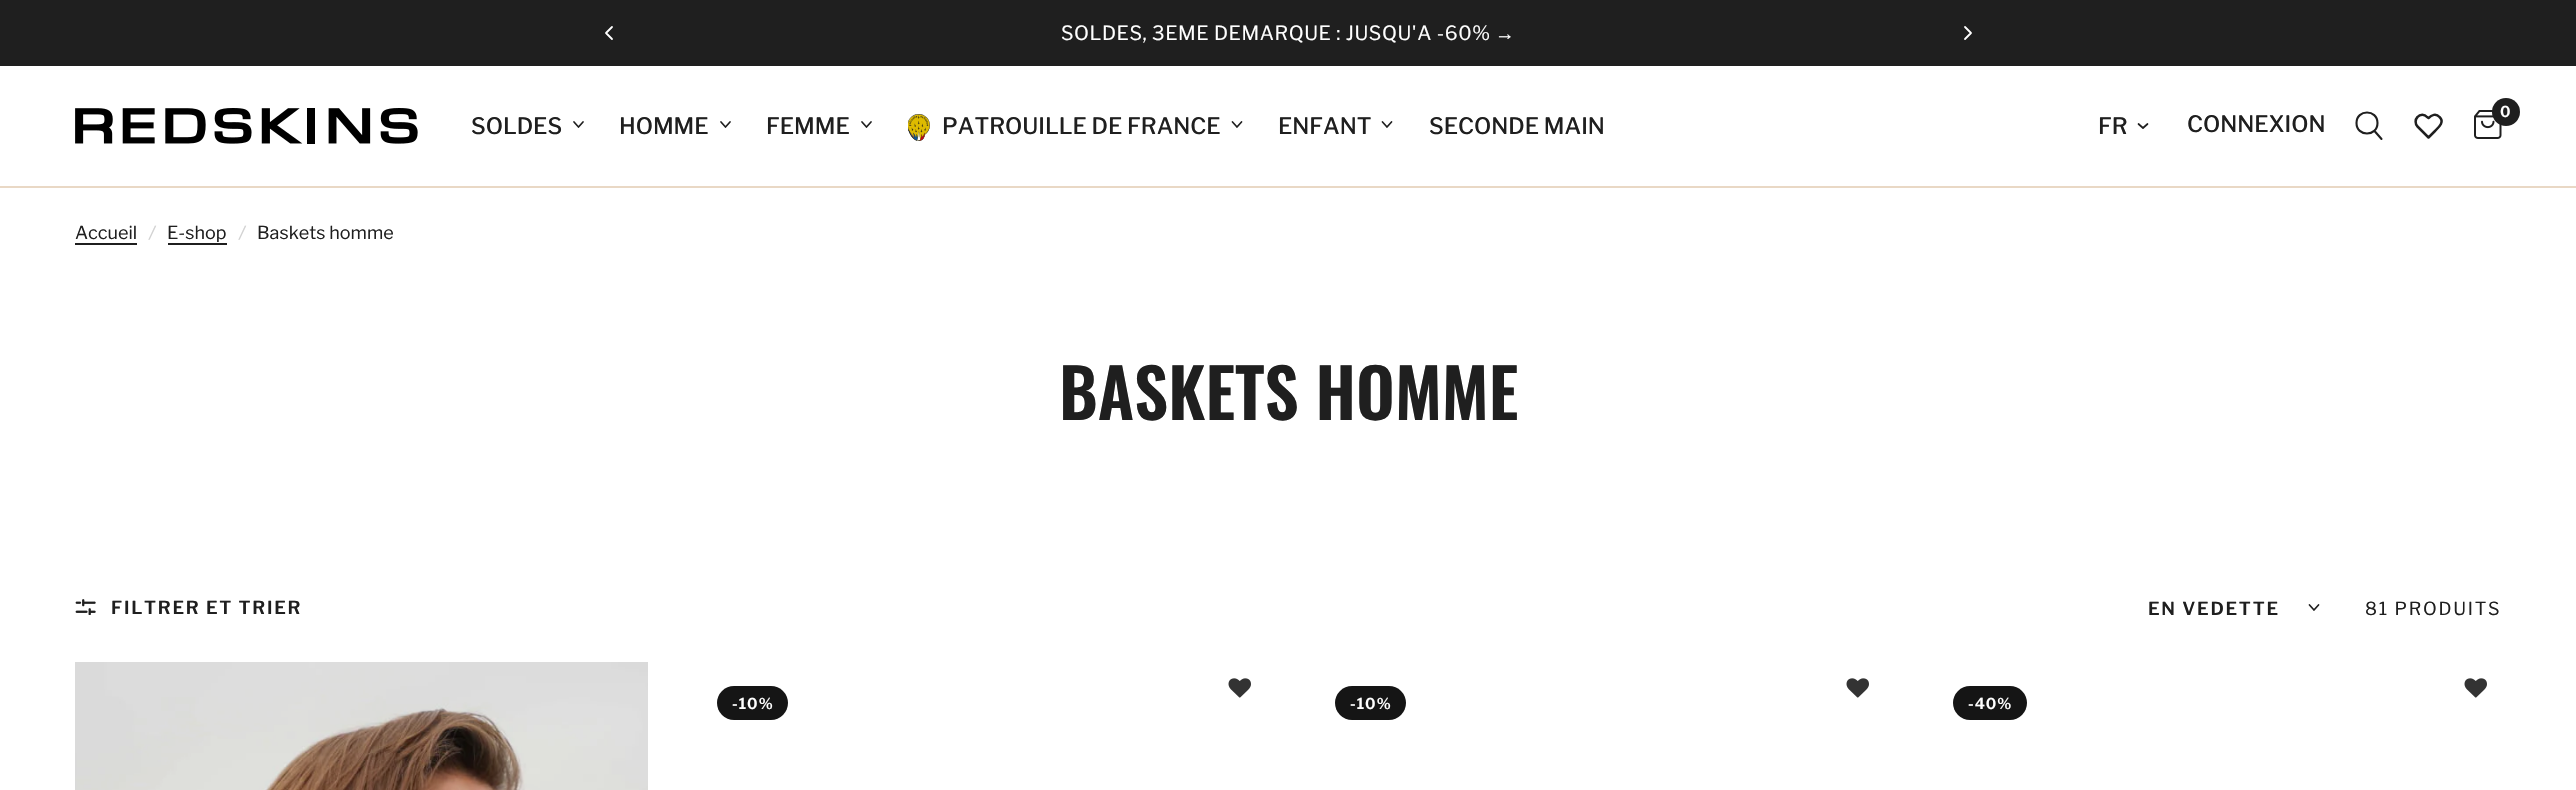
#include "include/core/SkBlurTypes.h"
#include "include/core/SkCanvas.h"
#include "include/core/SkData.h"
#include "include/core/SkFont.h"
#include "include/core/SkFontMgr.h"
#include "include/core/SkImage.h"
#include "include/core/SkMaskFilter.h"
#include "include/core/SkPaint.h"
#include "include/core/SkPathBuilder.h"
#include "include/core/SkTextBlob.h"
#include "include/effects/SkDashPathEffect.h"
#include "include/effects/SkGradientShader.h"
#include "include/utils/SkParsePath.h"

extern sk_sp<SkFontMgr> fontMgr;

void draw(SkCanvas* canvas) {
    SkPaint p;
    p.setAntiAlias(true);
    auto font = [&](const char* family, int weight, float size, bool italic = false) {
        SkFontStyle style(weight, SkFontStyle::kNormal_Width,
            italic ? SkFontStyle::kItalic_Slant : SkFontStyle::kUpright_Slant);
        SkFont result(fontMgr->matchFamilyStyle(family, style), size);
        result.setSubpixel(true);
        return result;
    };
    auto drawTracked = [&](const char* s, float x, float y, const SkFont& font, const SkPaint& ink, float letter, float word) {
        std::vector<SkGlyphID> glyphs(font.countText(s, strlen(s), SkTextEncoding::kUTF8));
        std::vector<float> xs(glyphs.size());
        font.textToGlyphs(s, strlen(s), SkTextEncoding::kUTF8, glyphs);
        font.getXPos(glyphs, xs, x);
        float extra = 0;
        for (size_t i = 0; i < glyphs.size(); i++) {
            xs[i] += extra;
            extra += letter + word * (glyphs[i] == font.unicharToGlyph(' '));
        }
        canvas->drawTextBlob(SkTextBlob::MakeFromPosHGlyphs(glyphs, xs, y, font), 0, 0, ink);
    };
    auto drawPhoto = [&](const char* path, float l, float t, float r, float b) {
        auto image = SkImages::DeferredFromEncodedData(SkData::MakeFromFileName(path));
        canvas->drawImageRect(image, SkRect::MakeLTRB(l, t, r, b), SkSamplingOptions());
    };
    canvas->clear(0xFFFFFFFF);
    p.setColor(0xFF1F1F1F);
    canvas->drawRect(SkRect::MakeLTRB(0, 0, 2576, 66), p);
    p.setStyle(SkPaint::kStroke_Style);
    p.setStrokeWidth(1.8f);
    p.setStrokeCap(SkPaint::kRound_Cap);
    p.setStrokeJoin(SkPaint::kRound_Join);
    p.setColor(0xFFFFFFFF);
    canvas->drawPath(SkPathBuilder().moveTo(612, 27).lineTo(606, 33).lineTo(612, 39).detach(), p);
    canvas->save();
    canvas->clipRect(SkRect::MakeLTRB(614, 24, 1964, 44));
    auto font1 = font("Libre Franklin", 400, 19.5f);
    p.setStyle(SkPaint::kFill_Style);
    drawTracked("SOLDES, 3ÈME DÉMARQUE : JUSQU'À -60%", 1061, 40, font1, p, 0.6f, 0);
    canvas->restore();
    auto font2 = font("Liberation Sans", 400, 19.5f);
    drawTracked("→", 1495, 40, font2, p, 0.6f, 0);
    p.setStyle(SkPaint::kStroke_Style);
    canvas->drawPath(SkPathBuilder().moveTo(1965, 27).lineTo(1971, 33).lineTo(1965, 39).detach(), p);
    p.setStyle(SkPaint::kFill_Style);
    p.setColor(0xFFE9D8C5);
    canvas->drawRect(SkRect::MakeLTRB(0, 186, 2576, 188), p);
    drawPhoto("media/1.png", 75, 108, 418, 144);
    auto font3 = font("Libre Franklin", 500, 22.5f);
    p.setColor(0xFF1F1F1F);
    canvas->drawString("SOLDES", 471, 134, font3, p);
    p.setStyle(SkPaint::kStroke_Style);
    p.setStrokeWidth(1.7f);
    canvas->drawPath(SkPathBuilder().moveTo(583, 122).lineTo(578.5f, 127).lineTo(574, 122).detach(), p);
    p.setStyle(SkPaint::kFill_Style);
    canvas->drawString("HOMME", 619, 134, font3, p);
    p.setStyle(SkPaint::kStroke_Style);
    canvas->drawPath(SkPathBuilder().moveTo(730, 122).lineTo(725.5f, 127).lineTo(721, 122).detach(), p);
    p.setStyle(SkPaint::kFill_Style);
    canvas->drawString("FEMME", 766, 134, font3, p);
    p.setStyle(SkPaint::kStroke_Style);
    canvas->drawPath(SkPathBuilder().moveTo(871, 122).lineTo(866.5f, 127).lineTo(862, 122).detach(), p);
    drawPhoto("media/2.png", 908, 114, 930, 141);
    p.setStyle(SkPaint::kFill_Style);
    canvas->drawString("PATROUILLE DE FRANCE", 942, 134, font3, p);
    p.setStyle(SkPaint::kStroke_Style);
    canvas->drawPath(SkPathBuilder().moveTo(1241.5f, 122).lineTo(1237, 127).lineTo(1232.5f, 122).detach(), p);
    p.setStyle(SkPaint::kFill_Style);
    canvas->drawString("ENFANT", 1278, 134, font3, p);
    p.setStyle(SkPaint::kStroke_Style);
    canvas->drawPath(SkPathBuilder().moveTo(1391.5f, 122).lineTo(1387, 127).lineTo(1382.5f, 122).detach(), p);
    p.setStyle(SkPaint::kFill_Style);
    canvas->drawString("SECONDE MAIN", 1429, 134, font3, p);
    canvas->drawString("FR", 2098, 134, font3, p);
    p.setStyle(SkPaint::kStroke_Style);
    canvas->drawPath(SkPathBuilder().moveTo(2147.5f, 124).lineTo(2143, 128).lineTo(2138.5f, 124).detach(), p);
    p.setStyle(SkPaint::kFill_Style);
    canvas->drawString("CONNEXION", 2187, 132, font3, p);
    p.setStyle(SkPaint::kStroke_Style);
    p.setStrokeWidth(2.1f);
    canvas->drawPath(SkPathBuilder().moveTo(2374.5f, 131).lineTo(2381.5f, 139).moveTo(2377.5f, 123).cubicTo(2377.5f, 137, 2356.5f, 137, 2356.5f, 123).cubicTo(2356.5f, 109, 2377.5f, 109, 2377.5f, 123).close().detach(), p);
    p.setStrokeWidth(2.5f);
    canvas->drawPath(SkPathBuilder().moveTo(2439.5f, 117).cubicTo(2436, 113, 2431.5f, 115, 2428.5f, 118).lineTo(2427, 117).cubicTo(2424.5f, 114, 2420, 114, 2417.5f, 117).cubicTo(2415, 119.5f, 2415, 124, 2417.5f, 126.5f).lineTo(2428.5f, 137.5f).lineTo(2435, 131).cubicTo(2438.5f, 127.5f, 2445, 122, 2439.5f, 117).close().detach(), p);
    drawPhoto("media/3.png", 2474, 110, 2502, 139);
    p.setStyle(SkPaint::kFill_Style);
    canvas->drawCircle(2506, 112, 14, p);
    auto font4 = font("Libre Franklin", 600, 15);
    p.setColor(0xFFFFFFFF);
    canvas->drawString("0", 2500, 117, font4, p);
    auto font5 = font("Libre Franklin", 400, 18);
    p.setColor(0xFF1F1F1F);
    canvas->drawString("Accueil", 75, 239, font5, p);
    canvas->drawRect(SkRect::MakeLTRB(75, 243, 137, 245), p);
    auto font6 = font("Libre Franklin", 400, 18, true);
    p.setColor(0xFFD2D2D2);
    canvas->drawString("/", 149, 239, font6, p);
    p.setColor(0xFF1F1F1F);
    canvas->drawString("E-shop", 167, 239, font5, p);
    canvas->drawRect(SkRect::MakeLTRB(168, 243, 227, 245), p);
    p.setColor(0xFFD2D2D2);
    canvas->drawString("/", 239, 239, font6, p);
    p.setColor(0xFF1F1F1F);
    canvas->drawString("Baskets homme", 257, 239, font5, p);
    auto font7 = font("Oswald", 600, 67.5f);
    canvas->drawString("BASKETS HOMME", 1059, 420, font7, p);
    drawPhoto("media/4.png", 75, 599, 96, 615);
    auto font8 = font("Libre Franklin", 600, 18);
    drawTracked("FILTRER ET TRIER", 111, 614, font8, p, 1.75f, 0);
    drawTracked("EN VEDETTE", 2148, 615, font8, p, 1.75f, 0);
    p.setStyle(SkPaint::kStroke_Style);
    p.setStrokeWidth(1.7f);
    canvas->drawPath(SkPathBuilder().moveTo(2318.5f, 605).lineTo(2314, 610).lineTo(2309.5f, 605).detach(), p);
    p.setStyle(SkPaint::kFill_Style);
    drawTracked("81 PRODUITS", 2365, 615, font5, p, 1.75f, 0);
    drawPhoto("media/5.png", 75, 662, 648, 790);
    drawPhoto("media/6.png", 1228, 678, 1251, 698);
    p.setColor(0xFF151515);
    canvas->drawRoundRect(SkRect::MakeLTRB(717, 686, 788, 720), 17, 17, p);
    p.setColor(0xFFFFFFFF);
    drawTracked("-10%", 732, 709, font4, p, 1, 0);
    drawPhoto("media/6.png", 1846, 678, 1869, 698);
    p.setColor(0xFF151515);
    canvas->drawRoundRect(SkRect::MakeLTRB(1335, 686, 1406, 720), 17, 17, p);
    p.setColor(0xFFFFFFFF);
    drawTracked("-10%", 1350, 709, font4, p, 1, 0);
    drawPhoto("media/6.png", 2464, 678, 2487, 698);
    p.setColor(0xFF151515);
    canvas->drawRoundRect(SkRect::MakeLTRB(1953, 686, 2027, 720), 17, 17, p);
    p.setColor(0xFFFFFFFF);
    drawTracked("-40%", 1968, 709, font4, p, 1, 0);
}
